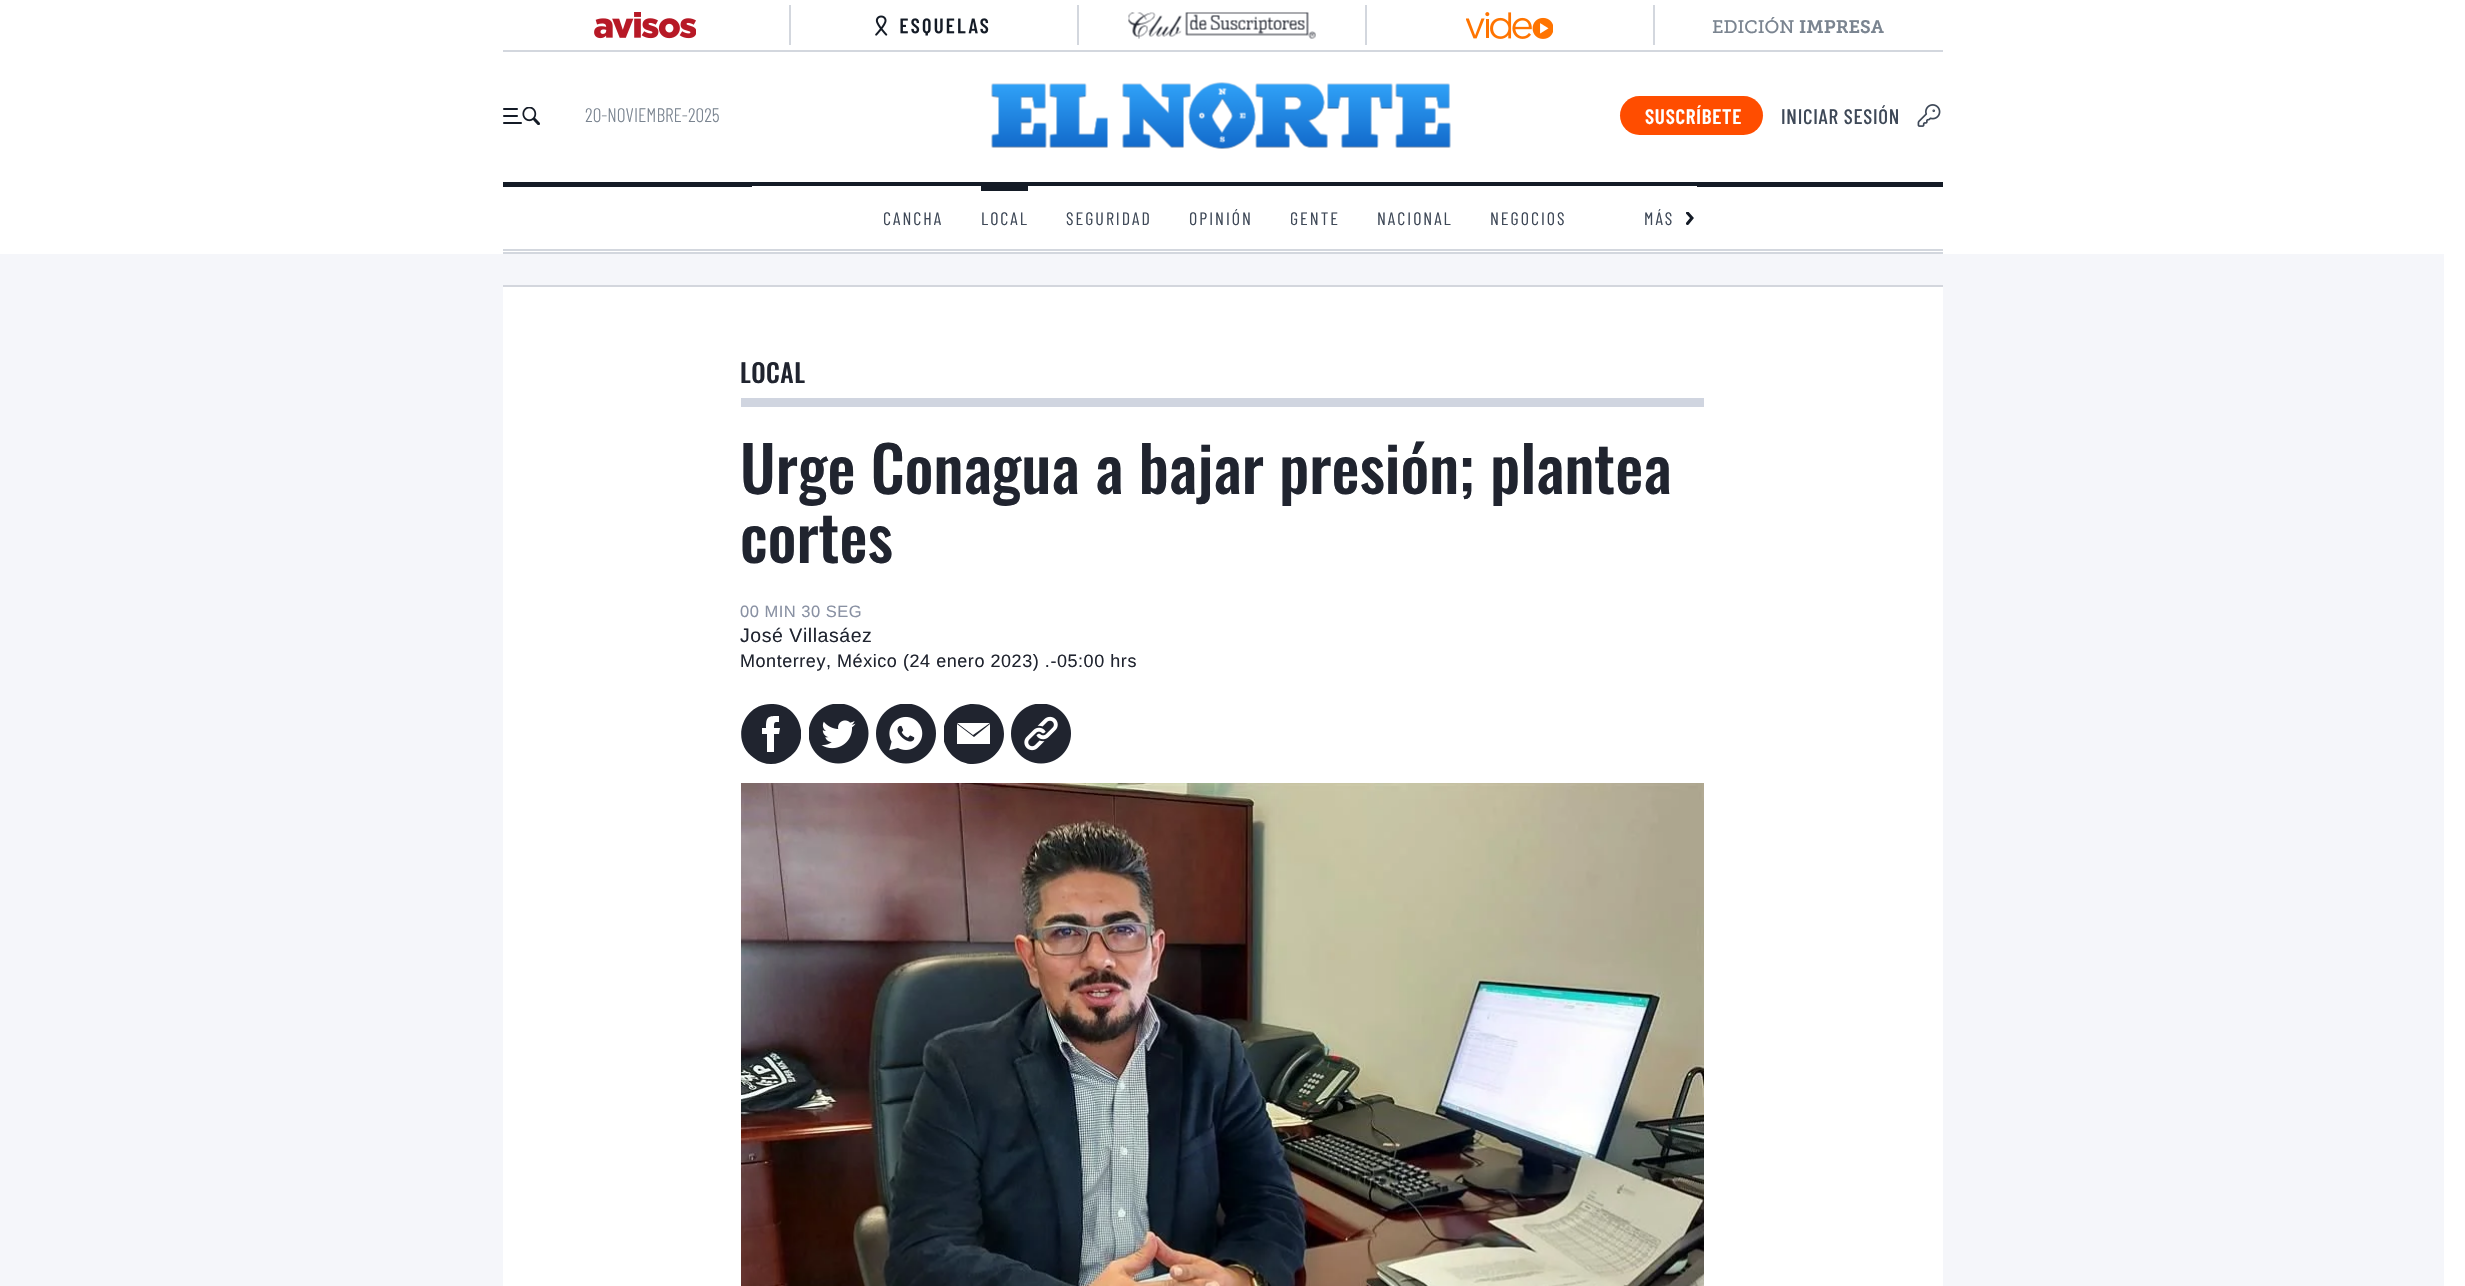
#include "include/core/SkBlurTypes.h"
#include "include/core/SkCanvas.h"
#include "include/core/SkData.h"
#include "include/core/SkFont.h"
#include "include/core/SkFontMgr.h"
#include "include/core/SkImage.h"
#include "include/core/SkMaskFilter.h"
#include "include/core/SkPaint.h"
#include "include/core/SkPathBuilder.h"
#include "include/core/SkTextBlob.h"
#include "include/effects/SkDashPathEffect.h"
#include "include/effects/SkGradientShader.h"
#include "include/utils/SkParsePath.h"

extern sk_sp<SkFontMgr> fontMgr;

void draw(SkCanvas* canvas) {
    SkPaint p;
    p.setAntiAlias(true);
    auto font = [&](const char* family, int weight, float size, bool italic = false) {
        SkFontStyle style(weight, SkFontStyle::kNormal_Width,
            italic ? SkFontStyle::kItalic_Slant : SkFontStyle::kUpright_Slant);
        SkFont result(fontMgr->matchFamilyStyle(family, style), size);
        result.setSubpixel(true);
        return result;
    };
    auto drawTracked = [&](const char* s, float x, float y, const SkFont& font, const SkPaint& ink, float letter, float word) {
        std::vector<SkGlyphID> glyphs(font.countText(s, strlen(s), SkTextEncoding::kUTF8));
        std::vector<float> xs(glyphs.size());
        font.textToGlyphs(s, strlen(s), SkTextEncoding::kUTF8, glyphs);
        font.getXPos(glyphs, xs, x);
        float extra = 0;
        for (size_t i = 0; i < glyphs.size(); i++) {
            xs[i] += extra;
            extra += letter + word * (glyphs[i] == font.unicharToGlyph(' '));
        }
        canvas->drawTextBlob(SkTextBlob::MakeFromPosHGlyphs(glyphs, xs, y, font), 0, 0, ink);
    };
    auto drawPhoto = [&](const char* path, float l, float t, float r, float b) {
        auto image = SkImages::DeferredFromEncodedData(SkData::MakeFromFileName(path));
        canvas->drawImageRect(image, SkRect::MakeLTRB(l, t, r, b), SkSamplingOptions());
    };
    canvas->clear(0xFFFFFFFF);
    p.setColor(0xFFD3D7DE);
    canvas->drawRect(SkRect::MakeLTRB(503, 50, 1943, 52), p);
    canvas->drawRect(SkRect::MakeLTRB(789, 5, 791, 45), p);
    drawPhoto("media/1.png", 594, 12, 696, 39);
    canvas->drawRect(SkRect::MakeLTRB(1077, 5, 1079, 45), p);
    drawPhoto("media/2.png", 875, 15, 989, 36);
    canvas->drawRect(SkRect::MakeLTRB(1365, 5, 1367, 45), p);
    drawPhoto("media/3.png", 1128, 12, 1316, 39);
    canvas->drawRect(SkRect::MakeLTRB(1653, 5, 1655, 45), p);
    drawPhoto("media/4.png", 1466, 12, 1553, 39);
    auto font1 = font("Museo Slab", 400, 18);
    p.setColor(0xFF7A8490);
    canvas->drawString("EDICIÓN", 1712, 33, font1, p);
    auto font2 = font("Museo Slab", 600, 18);
    canvas->drawString("IMPRESA", 1799, 33, font2, p);
    p.setColor(0xFF141B26);
    canvas->drawRect(SkRect::MakeLTRB(503, 182, 1943, 187), p);
    drawPhoto("media/5.png", 503, 107, 540, 125);
    auto font3 = font("Barlow Condensed", 300, 19.5f);
    p.setColor(0xFF7A8490);
    canvas->drawString("20-NOVIEMBRE-2025", 585, 122, font3, p);
    drawPhoto("media/6.png", 991, 82, 1451, 149);
    p.setColor(0xFFFF4D00);
    canvas->drawRoundRect(SkRect::MakeLTRB(1620, 96, 1763, 135), 19.5f, 19.5f, p);
    auto font4 = font("Barlow Condensed", 600, 21);
    p.setColor(0xFFFFFFFF);
    drawTracked("SUSCRÍBETE", 1645, 124, font4, p, 0.75f, 0);
    auto font5 = font("Barlow Condensed", 500, 21);
    p.setColor(0xFF3E4857);
    drawTracked("INICIAR SESIÓN", 1781, 124, font5, p, 0.75f, 0);
    drawPhoto("media/7.png", 1917, 104, 1941, 127);
    {
        const struct { float l, t, r, b; SkColor color; } items[] = {
            {503, 249, 1943, 251, 0xFFD3D7DE},
            {503, 252, 1943, 254, 0xFFD3D7DE},
            {752, 186, 1697, 187, 0xFFFFFFFF},
        };
        for (auto [l, t, r, b, color] : items) {
            p.setColor(color);
            canvas->drawRect(SkRect::MakeLTRB(l, t, r, b), p);
        }
    }
    auto font6 = font("Barlow Condensed", 400, 18);
    p.setColor(0xFF3E4857);
    drawTracked("CANCHA", 883, 225, font6, p, 2, 0);
    p.setColor(0xFF141B26);
    canvas->drawRect(SkRect::MakeLTRB(981, 186, 1028, 191), p);
    p.setColor(0xFF3E4857);
    {
        const struct { const char* s; float x, y; } items[] = {
            {"LOCAL", 981, 225},
            {"SEGURIDAD", 1066, 225},
            {"OPINIÓN", 1189, 225},
            {"GENTE", 1290, 225},
            {"NACIONAL", 1377, 225},
            {"NEGOCIOS", 1490, 225},
            {"MÁS", 1644, 225},
        };
        for (auto [s, x, y] : items) {
            drawTracked(s, x, y, font6, p, 2, 0);
        }
    }
    canvas->save();
    canvas->clipRect(SkRect::MakeLTRB(1686, 212, 1695, 225));
    p.setStyle(SkPaint::kStroke_Style);
    p.setStrokeWidth(3);
    p.setStrokeCap(SkPaint::kRound_Cap);
    p.setColor(0xFF141B26);
    canvas->drawPath(SkPathBuilder().moveTo(1687.5f, 213).lineTo(1692, 218).lineTo(1687.5f, 223.5f).detach(), p);
    canvas->restore();
    p.setStyle(SkPaint::kFill_Style);
    {
        const struct { float l, t, r, b; SkColor color; } items[] = {
            {0, 254, 2444, 1286, 0xFFF5F6FA},
            {503, 287, 1943, 1286, 0xFFFFFFFF},
            {503, 285, 1943, 287, 0xFFD3D6DD},
            {741, 398, 1704, 407, 0xFFD0D5E0},
        };
        for (auto [l, t, r, b, color] : items) {
            p.setColor(color);
            canvas->drawRect(SkRect::MakeLTRB(l, t, r, b), p);
        }
    }
    auto font7 = font("Oswald", 500, 25.5f);
    p.setColor(0xFF20242F);
    drawTracked("LOCAL", 740, 383, font7, p, 0.5f, 0);
    auto font8 = font("Oswald", 500, 63);
    canvas->drawString("Urge Conagua a bajar presión; plantea", 740, 494, font8, p);
    canvas->drawString("cortes", 740, 563, font8, p);
    auto font9 = font("Liberation Sans", 400, 16.5f);
    p.setColor(0xFF8991A3);
    drawTracked("00 MIN 30 SEG", 740, 617, font9, p, 0.5f, 0);
    auto font10 = font("Liberation Sans", 400, 19.5f);
    p.setColor(0xFF20242F);
    drawTracked("José Villasáez", 740, 642, font10, p, 0.55f, 0);
    auto font11 = font("Liberation Sans", 400, 18);
    drawTracked("Monterrey, México (24 enero 2023) .-05:00 hrs", 740, 667, font11, p, 0.55f, 0);
    canvas->save();
    canvas->clipRect(SkRect::MakeLTRB(741, 704, 801, 764));
    canvas->drawPath(SkPathBuilder().moveTo(771, 704).cubicTo(742, 704, 730, 742, 754, 758).cubicTo(759, 762, 765, 764, 771, 764).cubicTo(777, 764, 783, 762, 788, 758).cubicTo(813, 742, 800, 703, 771, 704).close().moveTo(779, 734).lineTo(774, 734).lineTo(774, 752).lineTo(767, 752).lineTo(767, 734).lineTo(762, 734).lineTo(762, 728).lineTo(766, 728).cubicTo(766, 716, 768, 716, 779, 716).lineTo(779, 722).cubicTo(774, 722, 774, 722, 774, 728).lineTo(780, 728).close().detach(), p);
    canvas->restore();
    drawPhoto("media/8.png", 809, 704, 869, 764);
    drawPhoto("media/9.png", 876, 704, 936, 764);
    canvas->save();
    canvas->clipRect(SkRect::MakeLTRB(944, 704, 1004, 764));
    canvas->drawPath(SkPathBuilder().moveTo(973, 704).cubicTo(957, 704, 943, 717, 943, 734).cubicTo(943, 750, 957, 764, 973, 764).cubicTo(990, 764, 1004, 750, 1004, 734).cubicTo(1004, 717, 990, 704, 973, 704).close().moveTo(990, 744).lineTo(957, 744).lineTo(957, 724).lineTo(974, 737).lineTo(990, 724).close().moveTo(973, 735).lineTo(957, 723).lineTo(990, 723).close().detach(), p);
    canvas->restore();
    drawPhoto("media/10.png", 1011, 704, 1071, 764);
    drawPhoto("media/11.png", 741, 783, 1704, 1286);
}
